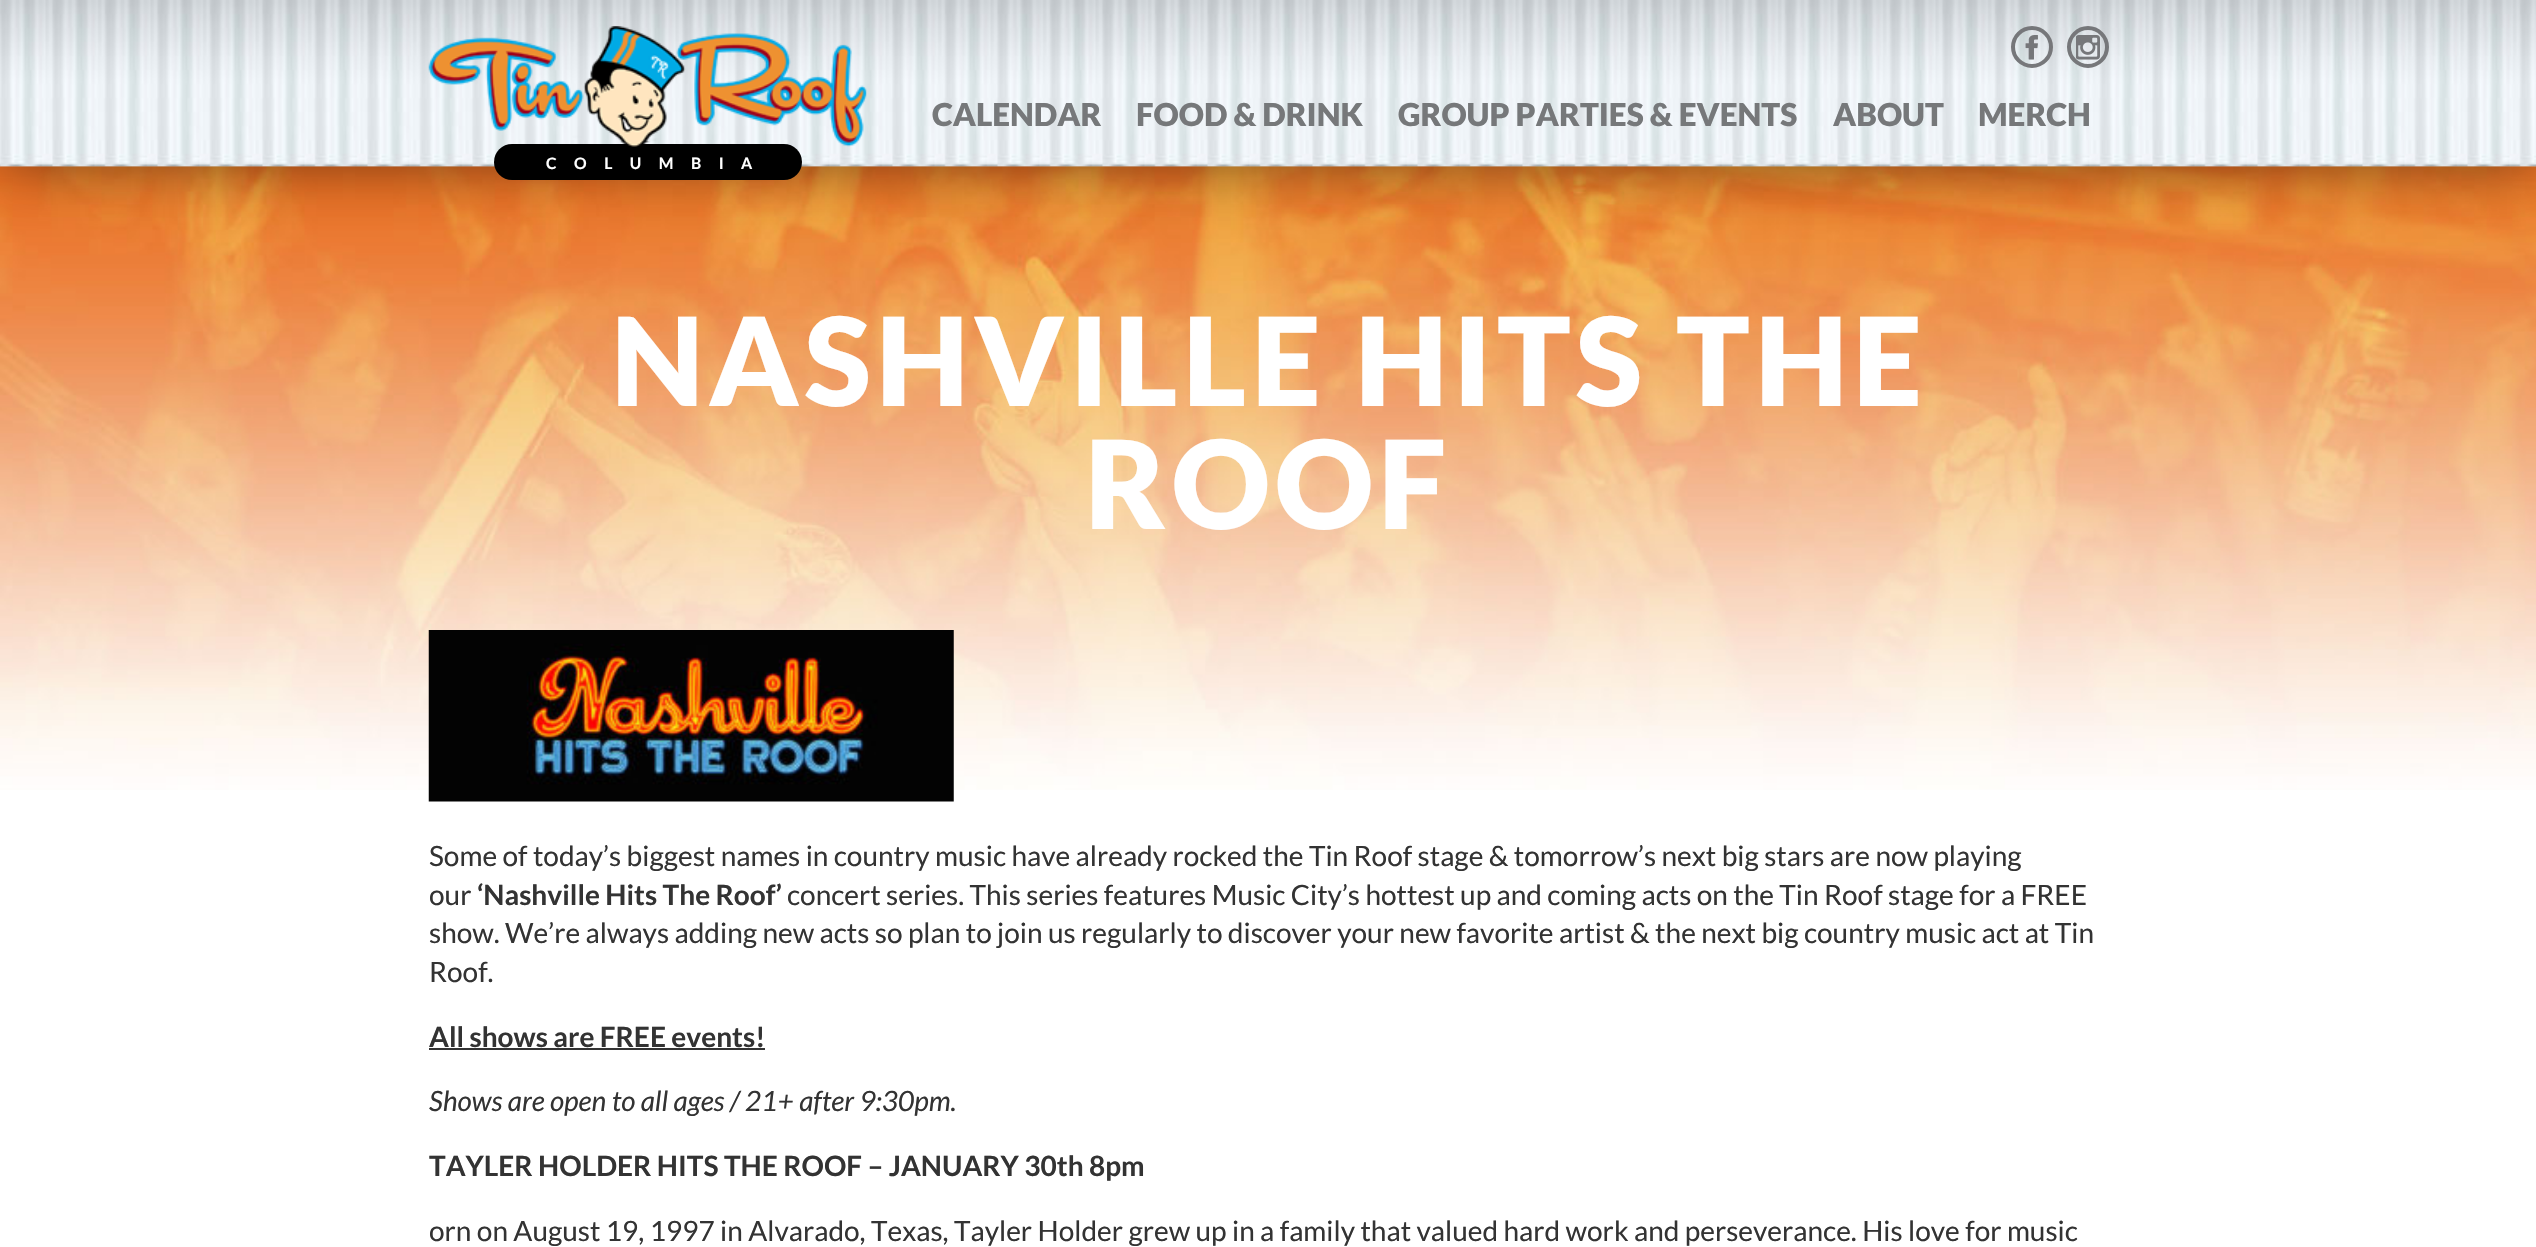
#include "include/core/SkBlurTypes.h"
#include "include/core/SkCanvas.h"
#include "include/core/SkData.h"
#include "include/core/SkFont.h"
#include "include/core/SkFontMgr.h"
#include "include/core/SkImage.h"
#include "include/core/SkMaskFilter.h"
#include "include/core/SkPaint.h"
#include "include/core/SkPathBuilder.h"
#include "include/core/SkTextBlob.h"
#include "include/effects/SkDashPathEffect.h"
#include "include/effects/SkGradientShader.h"
#include "include/utils/SkParsePath.h"

extern sk_sp<SkFontMgr> fontMgr;

void draw(SkCanvas* canvas) {
    SkPaint p;
    p.setAntiAlias(true);
    auto font = [&](const char* family, int weight, float size, bool italic = false) {
        SkFontStyle style(weight, SkFontStyle::kNormal_Width,
            italic ? SkFontStyle::kItalic_Slant : SkFontStyle::kUpright_Slant);
        SkFont result(fontMgr->matchFamilyStyle(family, style), size);
        result.setSubpixel(true);
        return result;
    };
    auto drawTracked = [&](const char* s, float x, float y, const SkFont& font, const SkPaint& ink, float letter, float word) {
        std::vector<SkGlyphID> glyphs(font.countText(s, strlen(s), SkTextEncoding::kUTF8));
        std::vector<float> xs(glyphs.size());
        font.textToGlyphs(s, strlen(s), SkTextEncoding::kUTF8, glyphs);
        font.getXPos(glyphs, xs, x);
        float extra = 0;
        for (size_t i = 0; i < glyphs.size(); i++) {
            xs[i] += extra;
            extra += letter + word * (glyphs[i] == font.unicharToGlyph(' '));
        }
        canvas->drawTextBlob(SkTextBlob::MakeFromPosHGlyphs(glyphs, xs, y, font), 0, 0, ink);
    };
    auto drawPhoto = [&](const char* path, float l, float t, float r, float b) {
        auto image = SkImages::DeferredFromEncodedData(SkData::MakeFromFileName(path));
        canvas->drawImageRect(image, SkRect::MakeLTRB(l, t, r, b), SkSamplingOptions());
    };
    canvas->clear(0xFFFFFFFF);
    drawPhoto("media/5.png", 0, 166, 2536, 790);
    p.setColor(0x80000000);
    p.setMaskFilter(SkMaskFilter::MakeBlur(kNormal_SkBlurStyle, 30.5f));
    canvas->drawRect(SkRect::MakeLTRB(0, 0, 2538, 166), p);
    p.setMaskFilter(nullptr);
    drawPhoto("media/1.png", 0, 0, 2536, 167);
    p.setStyle(SkPaint::kStroke_Style);
    p.setStrokeWidth(4);
    p.setColor(0xFF76777A);
    canvas->drawCircle(2032, 47, 19, p);
    drawPhoto("media/2.png", 2025, 35, 2038, 60);
    canvas->drawCircle(2088, 47, 19, p);
    drawPhoto("media/3.png", 2076, 35, 2100, 60);
    auto font1 = font("Lato", 900, 31.5f);
    p.setStyle(SkPaint::kFill_Style);
    p.setColor(0xFF76787A);
    {
        const struct { const char* s; float x, y; } items[] = {
            {"CALENDAR", 932, 126},
            {"FOOD & DRINK", 1136, 126},
            {"GROUP PARTIES & EVENTS", 1398, 126},
            {"ABOUT", 1833, 126},
            {"MERCH", 1978, 126},
        };
        for (auto [s, x, y] : items) {
            canvas->drawString(s, x, y, font1, p);
        }
    }
    p.setColor(0xFF000000);
    canvas->drawRoundRect(SkRect::MakeLTRB(494, 144, 802, 180), 18, 18, p);
    drawPhoto("media/4.png", 428, 26, 867, 147);
    auto font2 = font("Lato", 700, 15.75f);
    p.setColor(0xFFFFFFFF);
    drawTracked("COLUMBIA", 546, 169, font2, p, 17.5f, 0);
    auto font3 = font("Lato", 900, 122.5f);
    drawTracked("NASHVILLE HITS THE", 611, 406, font3, p, 5.25f, 0);
    drawTracked("ROOF", 1085, 529, font3, p, 5.25f, 0);
    drawPhoto("media/6.png", 428, 630, 954, 802);
    auto font4 = font("Lato", 400, 28);
    p.setColor(0xFF333333);
    canvas->drawString("Some of today’s biggest names in country music have already rocked the Tin Roof stage & tomorrow’s next big stars are now playing", 429, 866, font4, p);
    canvas->drawString("our", 429, 905, font4, p);
    auto font5 = font("Lato", 700, 28);
    canvas->drawString("‘Nashville Hits The Roof’", 477, 905, font5, p);
    {
        const struct { const char* s; float x, y; } items[] = {
            {"concert series. This series features Music City’s hottest up and coming acts on the Tin Roof stage for a FREE", 787, 905},
            {"show. We’re always adding new acts so plan to join us regularly to discover your new favorite artist & the next big country music act at Tin", 429, 943},
            {"Roof.", 429, 982},
        };
        for (auto [s, x, y] : items) {
            canvas->drawString(s, x, y, font4, p);
        }
    }
    canvas->drawString("All shows are FREE events!", 429, 1047, font5, p);
    canvas->drawRect(SkRect::MakeLTRB(429, 1048, 765, 1050), p);
    auto font6 = font("Lato", 400, 28, true);
    canvas->drawString("Shows are open to all ages / 21+ after 9:30pm.", 429, 1111, font6, p);
    canvas->drawString("TAYLER HOLDER HITS THE ROOF – JANUARY 30th 8pm", 429, 1176, font5, p);
    canvas->drawString("orn on August 19, 1997 in Alvarado, Texas, Tayler Holder grew up in a family that valued hard work and perseverance. His love for music", 429, 1241, font4, p);
}
